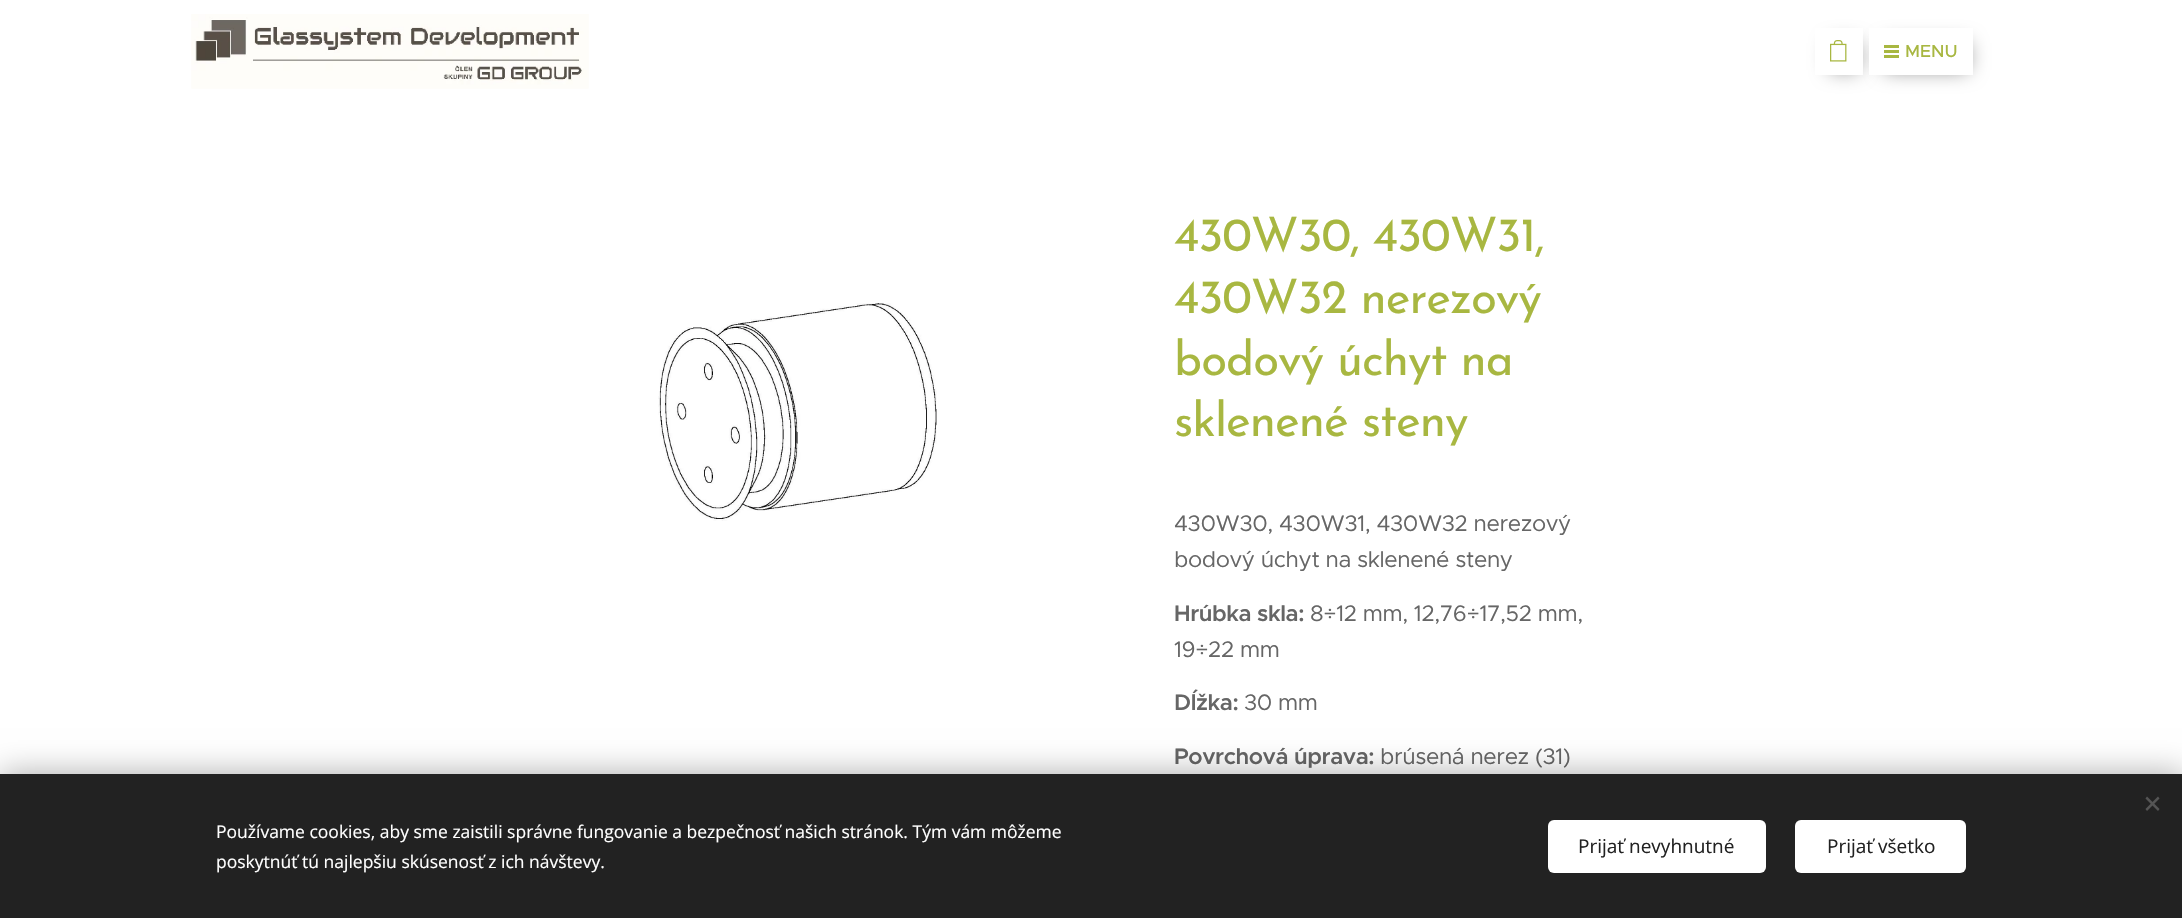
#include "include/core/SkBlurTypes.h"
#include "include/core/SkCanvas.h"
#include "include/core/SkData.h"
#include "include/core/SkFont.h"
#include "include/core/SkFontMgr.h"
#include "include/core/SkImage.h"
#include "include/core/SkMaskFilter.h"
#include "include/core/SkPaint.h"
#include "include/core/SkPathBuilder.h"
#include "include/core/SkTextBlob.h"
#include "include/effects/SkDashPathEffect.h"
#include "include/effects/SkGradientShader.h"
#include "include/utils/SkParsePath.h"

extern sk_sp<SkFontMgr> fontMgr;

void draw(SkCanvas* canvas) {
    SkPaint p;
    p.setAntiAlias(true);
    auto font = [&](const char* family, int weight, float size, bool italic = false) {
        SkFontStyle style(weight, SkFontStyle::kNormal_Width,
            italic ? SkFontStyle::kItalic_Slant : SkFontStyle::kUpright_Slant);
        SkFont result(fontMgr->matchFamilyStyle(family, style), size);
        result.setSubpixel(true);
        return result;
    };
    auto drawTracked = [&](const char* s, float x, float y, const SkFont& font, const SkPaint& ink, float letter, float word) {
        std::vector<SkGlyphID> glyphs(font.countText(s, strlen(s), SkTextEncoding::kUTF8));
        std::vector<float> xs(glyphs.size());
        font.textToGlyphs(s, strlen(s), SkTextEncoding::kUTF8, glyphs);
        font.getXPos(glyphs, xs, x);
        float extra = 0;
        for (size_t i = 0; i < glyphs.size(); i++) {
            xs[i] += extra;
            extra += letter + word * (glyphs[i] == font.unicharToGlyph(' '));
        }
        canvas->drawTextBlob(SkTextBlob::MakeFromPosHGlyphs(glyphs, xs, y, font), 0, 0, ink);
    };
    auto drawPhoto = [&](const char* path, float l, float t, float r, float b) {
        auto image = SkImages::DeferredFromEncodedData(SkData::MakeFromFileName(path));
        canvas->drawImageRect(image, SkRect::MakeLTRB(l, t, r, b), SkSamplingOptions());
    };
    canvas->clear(0xFFFFFFFF);
    drawPhoto("media/1.png", 191, 14, 589, 89);
    p.setColor(0x80000000);
    p.setMaskFilter(SkMaskFilter::MakeBlur(kNormal_SkBlurStyle, 10));
    canvas->drawRect(SkRect::MakeLTRB(1830, 43, 1858, 70), p);
    p.setMaskFilter(nullptr);
    p.setColor(0xFFFFFFFF);
    canvas->drawRect(SkRect::MakeLTRB(1815, 28, 1863, 75), p);
    drawPhoto("media/2.png", 1830, 40, 1847, 62);
    p.setColor(0x80000000);
    p.setMaskFilter(SkMaskFilter::MakeBlur(kNormal_SkBlurStyle, 10));
    canvas->drawRect(SkRect::MakeLTRB(1884, 43, 1968, 70), p);
    p.setMaskFilter(nullptr);
    {
        const struct { float l, t, r, b; SkColor color; } items[] = {
            {1869, 28, 1973, 75, 0xFFFFFFFF},
            {1884, 50, 1899, 53, 0xFFA8B741},
            {1884, 45, 1899, 48, 0xFFA8B741},
            {1884, 55, 1899, 58, 0xFFA8B741},
        };
        for (auto [l, t, r, b, color] : items) {
            p.setColor(color);
            canvas->drawRect(SkRect::MakeLTRB(l, t, r, b), p);
        }
    }
    auto font1 = font("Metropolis", 500, 17.5f);
    canvas->drawString("MENU", 1905, 57, font1, p);
    drawPhoto("media/3.png", 658, 303, 937, 521);
    auto font2 = font("Josefin Sans", 400, 47.5f);
    {
        const struct { const char* s; float x, y; } items[] = {
            {"430W30, 430W31,", 1174, 251},
            {"430W32 nerezový", 1174, 313},
            {"bodový úchyt na", 1174, 375},
            {"sklenené steny", 1174, 436},
        };
        for (auto [s, x, y] : items) {
            drawTracked(s, x, y, font2, p, -1, 0);
        }
    }
    auto font3 = font("Metropolis", 400, 22.5f);
    p.setColor(0xFF666666);
    drawTracked("430W30, 430W31, 430W32 nerezový", 1174, 531, font3, p, -0.4f, 0);
    drawTracked("bodový úchyt na sklenené steny", 1174, 567, font3, p, -0.4f, 0);
    auto font4 = font("Metropolis", 600, 22.5f);
    drawTracked("Hrúbka skla:", 1174, 621, font4, p, -0.4f, 0);
    drawTracked("8÷12 mm, 12,76÷17,52 mm,", 1310, 621, font3, p, -0.4f, 0);
    drawTracked("19÷22 mm", 1174, 657, font3, p, -0.4f, 0);
    drawTracked("Dĺžka:", 1174, 710, font4, p, -0.4f, 0);
    drawTracked("30 mm", 1244, 710, font3, p, -0.4f, 0);
    drawTracked("Povrchová úprava:", 1174, 764, font4, p, -0.4f, 0);
    drawTracked("brúsená nerez (31)", 1380, 764, font3, p, -0.4f, 0);
    p.setColor(0x54000000);
    p.setMaskFilter(SkMaskFilter::MakeBlur(kNormal_SkBlurStyle, 15.5f));
    canvas->drawRect(SkRect::MakeLTRB(0, 774, 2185, 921), p);
    p.setMaskFilter(nullptr);
    p.setColor(0xFF222222);
    canvas->drawRect(SkRect::MakeLTRB(0, 774, 2182, 918), p);
    p.setColor(0xFF555555);
    canvas->drawPath(SkPathBuilder().moveTo(2145.5f, 809).lineTo(2158, 796.5f).lineTo(2159.5f, 798.5f).lineTo(2147, 811).close().detach(), p);
    canvas->drawPath(SkPathBuilder().moveTo(2147, 796.5f).lineTo(2159.5f, 809).lineTo(2158, 811).lineTo(2145.5f, 798.5f).close().detach(), p);
    auto font5 = font("Open Sans", 400, 17.5f);
    p.setColor(0xFFFFFFFF);
    canvas->drawString("Používame cookies, aby sme zaistili správne fungovanie a bezpečnosť našich stránok. Tým vám môžeme", 216, 838, font5, p);
    canvas->drawString("poskytnúť tú najlepšiu skúsenosť z ich návštevy.", 216, 868, font5, p);
    canvas->drawRoundRect(SkRect::MakeLTRB(1548, 820, 1766, 873), 6, 6, p);
    auto font6 = font("Open Sans", 400, 19);
    p.setColor(0xFF222222);
    canvas->drawString("Prijať nevyhnutné", 1578, 853, font6, p);
    p.setColor(0xFFFFFFFF);
    canvas->drawRoundRect(SkRect::MakeLTRB(1795, 820, 1966, 873), 6, 6, p);
    p.setColor(0xFF222222);
    canvas->drawString("Prijať všetko", 1827, 853, font6, p);
}
